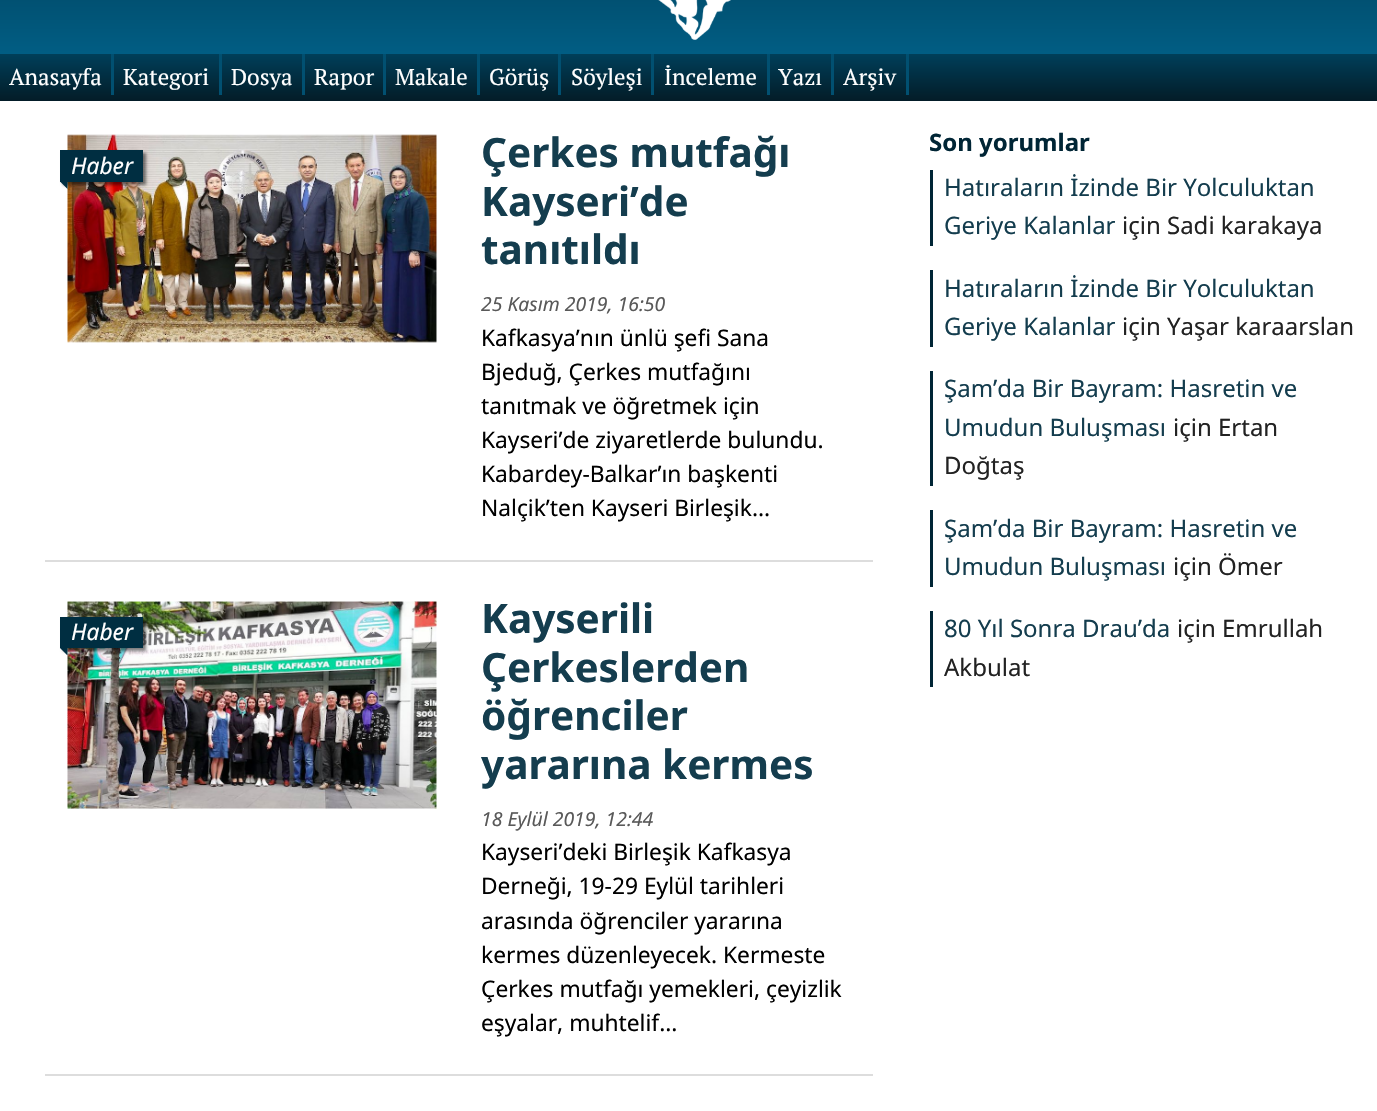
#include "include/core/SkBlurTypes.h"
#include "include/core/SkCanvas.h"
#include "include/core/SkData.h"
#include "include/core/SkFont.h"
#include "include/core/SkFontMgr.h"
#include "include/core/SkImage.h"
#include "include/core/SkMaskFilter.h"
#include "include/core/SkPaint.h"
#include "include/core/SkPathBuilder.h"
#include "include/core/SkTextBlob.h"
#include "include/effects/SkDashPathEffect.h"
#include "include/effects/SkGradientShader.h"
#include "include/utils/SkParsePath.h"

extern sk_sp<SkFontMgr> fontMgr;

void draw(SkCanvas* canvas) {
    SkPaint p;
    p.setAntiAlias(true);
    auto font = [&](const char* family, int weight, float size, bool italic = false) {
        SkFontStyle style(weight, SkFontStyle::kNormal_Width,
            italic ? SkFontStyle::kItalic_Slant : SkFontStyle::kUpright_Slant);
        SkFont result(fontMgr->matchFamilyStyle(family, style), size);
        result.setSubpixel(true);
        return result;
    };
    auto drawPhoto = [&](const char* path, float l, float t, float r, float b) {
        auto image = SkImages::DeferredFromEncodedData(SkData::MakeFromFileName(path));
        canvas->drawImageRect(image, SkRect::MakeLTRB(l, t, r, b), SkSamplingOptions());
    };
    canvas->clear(0xFFFFFFFF);
    {
        const SkColor colors[] = {0xFF00374D, 0xFF016893};
        const float stops[] = {0, 1};
        const SkPoint ends[] = {{689, -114}, {689, 101}};
        p.setShader(SkGradientShader::MakeLinear(ends, colors, stops, 2, SkTileMode::kClamp));
        p.setAlpha(255);
    }
    canvas->drawRect(SkRect::MakeLTRB(0, 0, 1377, 54), p);
    drawPhoto("media/1.png", 658, 0, 731, 40);
    {
        const SkColor colors[] = {0xFF003F5A, 0xFF031C27};
        const float stops[] = {0, 1};
        const SkPoint ends[] = {{689, 54}, {689, 101}};
        p.setShader(SkGradientShader::MakeLinear(ends, colors, stops, 2, SkTileMode::kClamp));
        p.setAlpha(255);
    }
    canvas->drawRect(SkRect::MakeLTRB(0, 54, 1377, 101), p);
    p.setShader(nullptr);
    p.setColor(0xFF015071);
    canvas->drawRect(SkRect::MakeLTRB(111, 54, 114, 95), p);
    auto font1 = font("PT Serif", 400, 22.75f);
    p.setColor(0xFFFFFFFF);
    canvas->drawString("Anasayfa", 9, 85, font1, p);
    p.setColor(0xFF015071);
    canvas->drawRect(SkRect::MakeLTRB(219, 54, 222, 95), p);
    p.setColor(0xFFFFFFFF);
    canvas->drawString("Kategori", 123, 85, font1, p);
    p.setColor(0xFF015071);
    canvas->drawRect(SkRect::MakeLTRB(302, 54, 305, 95), p);
    p.setColor(0xFFFFFFFF);
    canvas->drawString("Dosya", 231, 85, font1, p);
    p.setColor(0xFF015071);
    canvas->drawRect(SkRect::MakeLTRB(383, 54, 386, 95), p);
    p.setColor(0xFFFFFFFF);
    canvas->drawString("Rapor", 314, 85, font1, p);
    p.setColor(0xFF015071);
    canvas->drawRect(SkRect::MakeLTRB(477, 54, 480, 95), p);
    p.setColor(0xFFFFFFFF);
    canvas->drawString("Makale", 395, 85, font1, p);
    p.setColor(0xFF015071);
    canvas->drawRect(SkRect::MakeLTRB(558, 54, 561, 95), p);
    p.setColor(0xFFFFFFFF);
    canvas->drawString("Görüş", 489, 85, font1, p);
    p.setColor(0xFF015071);
    canvas->drawRect(SkRect::MakeLTRB(651, 54, 654, 95), p);
    p.setColor(0xFFFFFFFF);
    canvas->drawString("Söyleşi", 571, 85, font1, p);
    p.setColor(0xFF015071);
    canvas->drawRect(SkRect::MakeLTRB(767, 54, 770, 95), p);
    p.setColor(0xFFFFFFFF);
    canvas->drawString("İnceleme", 664, 85, font1, p);
    p.setColor(0xFF015071);
    canvas->drawRect(SkRect::MakeLTRB(831, 54, 834, 95), p);
    p.setColor(0xFFFFFFFF);
    canvas->drawString("Yazı", 778, 85, font1, p);
    p.setColor(0xFF015071);
    canvas->drawRect(SkRect::MakeLTRB(906, 54, 909, 95), p);
    p.setColor(0xFFFFFFFF);
    canvas->drawString("Arşiv", 843, 85, font1, p);
    drawPhoto("media/2.png", 67, 134, 437, 343);
    p.setColor(0x80000000);
    p.setMaskFilter(SkMaskFilter::MakeBlur(kNormal_SkBlurStyle, 1.5f));
    canvas->drawRect(SkRect::MakeLTRB(63, 153, 146, 185), p);
    p.setMaskFilter(nullptr);
    p.setColor(0xFF002E41);
    canvas->drawRect(SkRect::MakeLTRB(60, 150, 143, 182), p);
    auto font2 = font("Noto Sans", 400, 22.75f, true);
    p.setColor(0xFFFFFFFF);
    canvas->drawString("Haber", 71, 174, font2, p);
    p.setColor(0xFF002E41);
    canvas->drawPath(SkPathBuilder().moveTo(67.5f, 181.5f).lineTo(67.5f, 189).lineTo(60, 181.5f).close().detach(), p);
    auto font3 = font("Noto Sans", 700, 40.5f);
    p.setColor(0xFF143D4E);
    {
        const struct { const char* s; float x, y; } items[] = {
            {"Çerkes mutfağı", 481, 167},
            {"Kayseri’de", 481, 216},
            {"tanıtıldı", 481, 264},
        };
        for (auto [s, x, y] : items) {
            canvas->drawString(s, x, y, font3, p);
        }
    }
    auto font4 = font("Noto Sans", 400, 19.4f, true);
    p.setColor(0xFF595959);
    canvas->drawString("25 Kasım 2019, 16:50", 481, 311, font4, p);
    auto font5 = font("Noto Sans", 400, 22.75f);
    p.setColor(0xFF000000);
    {
        const struct { const char* s; float x, y; } items[] = {
            {"Kafkasya’nın ünlü şefi Sana", 481, 346},
            {"Bjeduğ, Çerkes mutfağını", 481, 380},
            {"tanıtmak ve öğretmek için", 481, 414},
            {"Kayseri’de ziyaretlerde bulundu.", 481, 448},
            {"Kabardey-Balkar’ın başkenti", 481, 482},
            {"Nalçik’ten Kayseri Birleşik...", 481, 516},
        };
        for (auto [s, x, y] : items) {
            canvas->drawString(s, x, y, font5, p);
        }
    }
    p.setColor(0xFFDDDDDD);
    canvas->drawRect(SkRect::MakeLTRB(45, 560, 873, 562), p);
    drawPhoto("media/3.png", 67, 601, 437, 809);
    p.setColor(0x80000000);
    p.setMaskFilter(SkMaskFilter::MakeBlur(kNormal_SkBlurStyle, 1.5f));
    canvas->drawRect(SkRect::MakeLTRB(63, 620, 146, 651), p);
    p.setMaskFilter(nullptr);
    p.setColor(0xFF002E41);
    canvas->drawRect(SkRect::MakeLTRB(60, 617, 143, 648), p);
    p.setColor(0xFFFFFFFF);
    canvas->drawString("Haber", 71, 640, font2, p);
    p.setColor(0xFF002E41);
    canvas->drawPath(SkPathBuilder().moveTo(67.5f, 648).lineTo(67.5f, 655.5f).lineTo(60, 648).close().detach(), p);
    p.setColor(0xFF143D4E);
    {
        const struct { const char* s; float x, y; } items[] = {
            {"Kayserili", 481, 633},
            {"Çerkeslerden", 481, 682},
            {"öğrenciler", 481, 730},
            {"yararına kermes", 481, 779},
        };
        for (auto [s, x, y] : items) {
            canvas->drawString(s, x, y, font3, p);
        }
    }
    p.setColor(0xFF595959);
    canvas->drawString("18 Eylül 2019, 12:44", 481, 826, font4, p);
    p.setColor(0xFF000000);
    {
        const struct { const char* s; float x, y; } items[] = {
            {"Kayseri’deki Birleşik Kafkasya", 481, 860},
            {"Derneği, 19-29 Eylül tarihleri", 481, 894},
            {"arasında öğrenciler yararına", 481, 929},
            {"kermes düzenleyecek. Kermeste", 481, 963},
            {"Çerkes mutfağı yemekleri, çeyizlik", 481, 997},
            {"eşyalar, muhtelif...", 481, 1031},
        };
        for (auto [s, x, y] : items) {
            canvas->drawString(s, x, y, font5, p);
        }
    }
    p.setColor(0xFFDDDDDD);
    canvas->drawRect(SkRect::MakeLTRB(45, 1074, 873, 1076), p);
    auto font6 = font("Noto Sans", 700, 24);
    p.setColor(0xFF002535);
    canvas->drawString("Son yorumlar", 929, 151, font6, p);
    canvas->drawRect(SkRect::MakeLTRB(930, 170, 933, 246), p);
    auto font7 = font("Noto Sans", 400, 24);
    p.setColor(0xFF143D4E);
    canvas->drawString("Hatıraların İzinde Bir Yolculuktan", 944, 196, font7, p);
    canvas->drawString("Geriye Kalanlar", 944, 234, font7, p);
    p.setColor(0xFF222222);
    canvas->drawString("için Sadi karakaya", 1122, 234, font7, p);
    p.setColor(0xFF002535);
    canvas->drawRect(SkRect::MakeLTRB(930, 270, 933, 347), p);
    p.setColor(0xFF143D4E);
    canvas->drawString("Hatıraların İzinde Bir Yolculuktan", 944, 297, font7, p);
    canvas->drawString("Geriye Kalanlar", 944, 335, font7, p);
    p.setColor(0xFF222222);
    canvas->drawString("için Yaşar karaarslan", 1122, 335, font7, p);
    p.setColor(0xFF002535);
    canvas->drawRect(SkRect::MakeLTRB(930, 371, 933, 486), p);
    p.setColor(0xFF143D4E);
    canvas->drawString("Şam’da Bir Bayram: Hasretin ve", 944, 397, font7, p);
    canvas->drawString("Umudun Buluşması", 944, 436, font7, p);
    p.setColor(0xFF222222);
    canvas->drawString("için Ertan", 1173, 436, font7, p);
    canvas->drawString("Doğtaş", 944, 474, font7, p);
    p.setColor(0xFF002535);
    canvas->drawRect(SkRect::MakeLTRB(930, 510, 933, 587), p);
    p.setColor(0xFF143D4E);
    canvas->drawString("Şam’da Bir Bayram: Hasretin ve", 944, 537, font7, p);
    canvas->drawString("Umudun Buluşması", 944, 575, font7, p);
    p.setColor(0xFF222222);
    canvas->drawString("için Ömer", 1173, 575, font7, p);
    p.setColor(0xFF002535);
    canvas->drawRect(SkRect::MakeLTRB(930, 611, 933, 687), p);
    p.setColor(0xFF143D4E);
    canvas->drawString("80 Yıl Sonra Drau’da", 944, 637, font7, p);
    p.setColor(0xFF222222);
    canvas->drawString("için Emrullah", 1177, 637, font7, p);
    canvas->drawString("Akbulat", 944, 676, font7, p);
}
